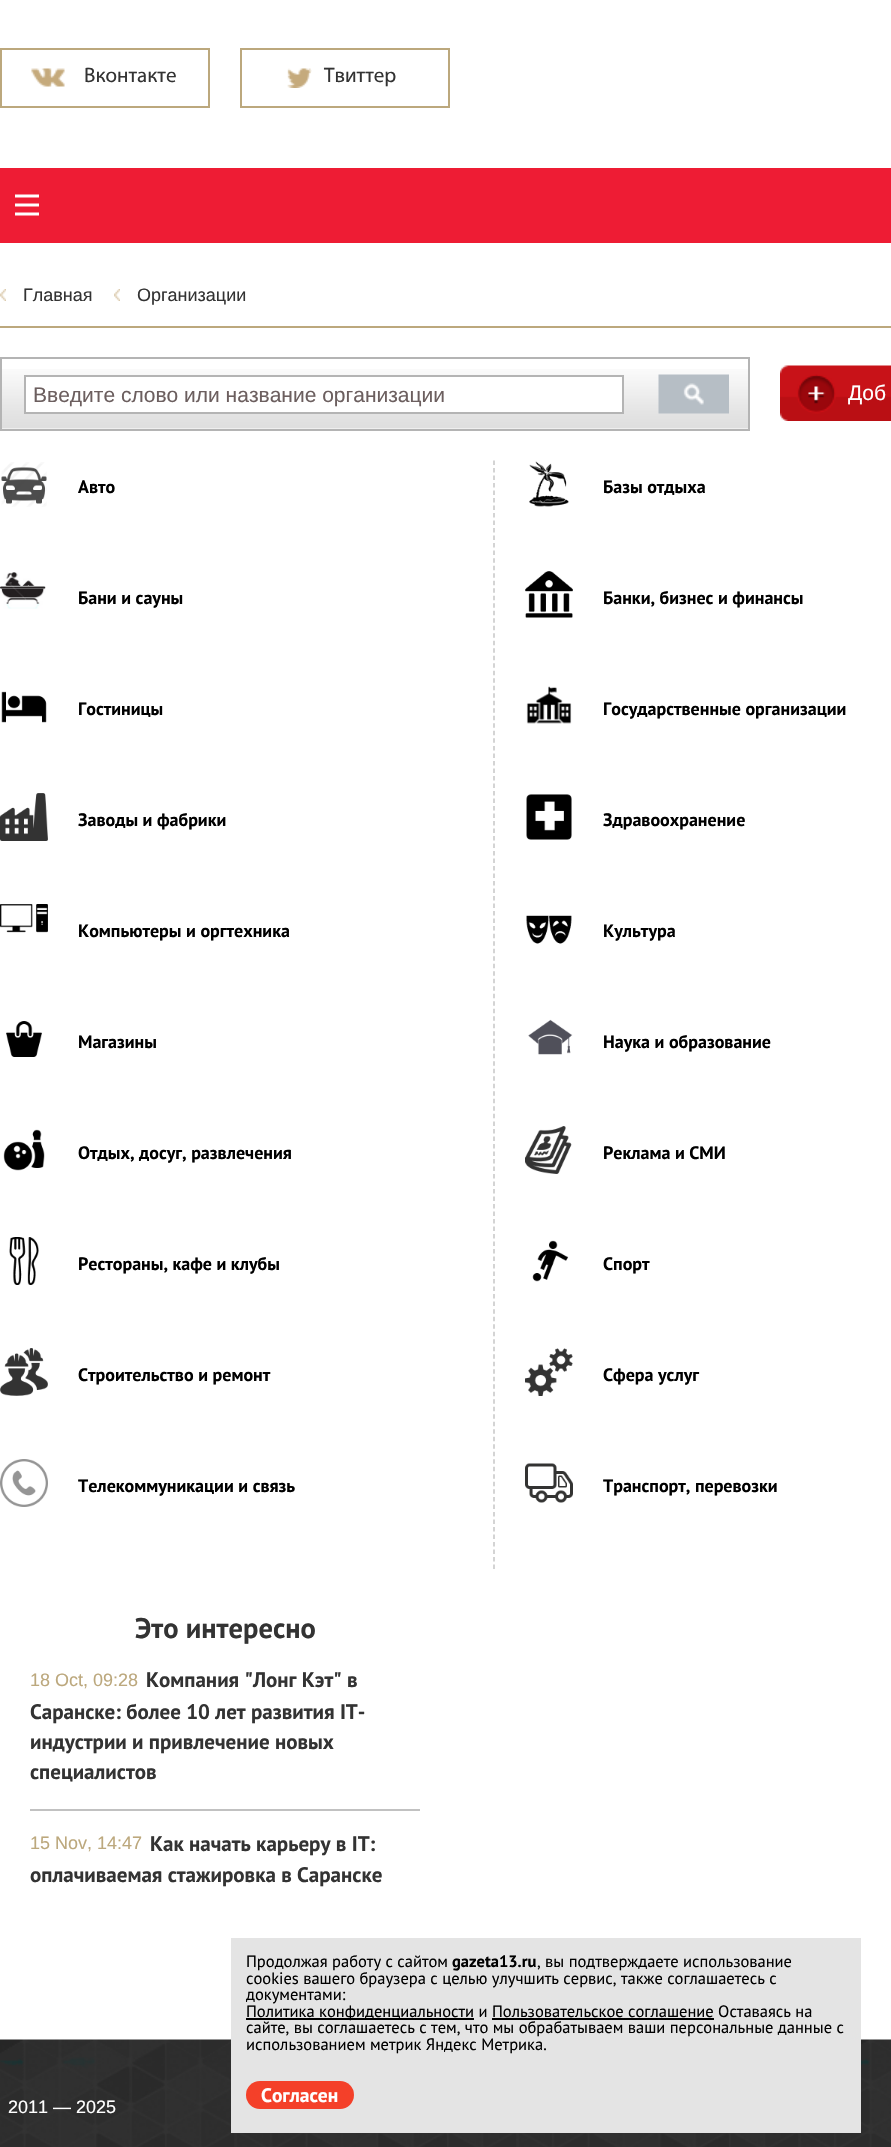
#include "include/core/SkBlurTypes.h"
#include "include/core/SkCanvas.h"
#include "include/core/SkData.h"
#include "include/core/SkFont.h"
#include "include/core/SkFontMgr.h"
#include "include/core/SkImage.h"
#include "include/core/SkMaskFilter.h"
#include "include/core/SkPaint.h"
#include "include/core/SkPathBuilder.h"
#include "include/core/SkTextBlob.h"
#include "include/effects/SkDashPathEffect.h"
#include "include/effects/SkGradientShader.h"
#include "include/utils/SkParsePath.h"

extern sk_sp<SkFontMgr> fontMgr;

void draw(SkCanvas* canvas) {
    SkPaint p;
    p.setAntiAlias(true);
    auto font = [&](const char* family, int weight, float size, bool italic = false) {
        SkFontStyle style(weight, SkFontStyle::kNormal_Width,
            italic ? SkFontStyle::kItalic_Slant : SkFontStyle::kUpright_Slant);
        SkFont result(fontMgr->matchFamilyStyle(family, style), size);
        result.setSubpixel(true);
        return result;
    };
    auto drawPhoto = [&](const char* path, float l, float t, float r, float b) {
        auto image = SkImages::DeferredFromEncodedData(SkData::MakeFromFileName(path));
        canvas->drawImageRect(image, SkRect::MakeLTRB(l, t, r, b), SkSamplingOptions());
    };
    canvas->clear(0xFFFFFFFF);
    drawPhoto("media/1.png", 31, 68, 65, 87);
    p.setStyle(SkPaint::kStroke_Style);
    p.setStrokeWidth(2);
    p.setColor(0xFFBCA87D);
    canvas->drawRect(SkRect::MakeLTRB(1, 49, 209, 107), p);
    auto font1 = font("Myriad", 400, 21);
    p.setStyle(SkPaint::kFill_Style);
    p.setColor(0xFF333333);
    canvas->drawString("Вконтакте", 84, 82, font1, p);
    drawPhoto("media/2.png", 287, 68, 312, 88);
    p.setStyle(SkPaint::kStroke_Style);
    p.setColor(0xFFBCA87D);
    canvas->drawRect(SkRect::MakeLTRB(241, 49, 449, 107), p);
    p.setStyle(SkPaint::kFill_Style);
    p.setColor(0xFF333333);
    canvas->drawString("Твиттер", 324, 82, font1, p);
    p.setColor(0xFFEE1C34);
    canvas->drawRect(SkRect::MakeLTRB(0, 168, 891, 243), p);
    drawPhoto("media/3.png", 15, 194, 39, 216);
    p.setColor(0xFFBCA87D);
    canvas->drawRect(SkRect::MakeLTRB(0, 326, 891, 328), p);
    drawPhoto("media/4.png", 0, 289, 6, 301);
    auto font2 = font("Liberation Sans", 400, 18);
    p.setColor(0xFF333333);
    canvas->drawString("Главная", 23, 301, font2, p);
    drawPhoto("media/4.png", 114, 289, 120, 301);
    canvas->drawString("Организации", 137, 301, font2, p);
    drawPhoto("media/5.png", 2, 369, 748, 429);
    p.setStyle(SkPaint::kStroke_Style);
    p.setColor(0xFFB4B4B4);
    canvas->drawRect(SkRect::MakeLTRB(1, 358, 749, 430), p);
    p.setStyle(SkPaint::kFill_Style);
    p.setColor(0xFFFFFFFF);
    canvas->drawRect(SkRect::MakeLTRB(25, 376, 623, 413), p);
    p.setStyle(SkPaint::kStroke_Style);
    p.setColor(0xFFB4B4B4);
    canvas->drawRect(SkRect::MakeLTRB(25, 376, 623, 413), p);
    auto font3 = font("Liberation Sans", 400, 21);
    p.setStyle(SkPaint::kFill_Style);
    p.setColor(0xFF6C5F5F);
    canvas->drawString("Введите слово или название организации", 33, 402, font3, p);
    drawPhoto("media/6.png", 658, 374, 729, 414);
    drawPhoto("media/7.png", 780, 365, 891, 421);
    p.setColor(0xFFFFFFFF);
    canvas->drawString("Доб", 848, 400, font3, p);
    drawPhoto("media/8.png", 1, 462, 47, 507);
    auto font4 = font("PT Sans", 700, 18);
    p.setColor(0xFF000000);
    canvas->drawString("Авто", 78, 493, font4, p);
    p.setStyle(SkPaint::kStroke_Style);
    p.setStrokeWidth(1.5f);
    p.setColor(0xFFC6C6C6);
    p.setPathEffect(SkDashPathEffect::Make({{4.5f, 3.01f}}, 0));
    canvas->drawPath(SkPathBuilder().moveTo(494, 460.5f).lineTo(494, 1570.5f).detach(), p);
    p.setPathEffect(nullptr);
    drawPhoto("media/9.png", 529, 461, 569, 507);
    p.setStyle(SkPaint::kFill_Style);
    p.setColor(0xFF000000);
    canvas->drawString("Базы отдыха", 603, 493, font4, p);
    drawPhoto("media/10.png", 0, 572, 46, 609);
    canvas->drawString("Бани и сауны", 78, 604, font4, p);
    drawPhoto("media/11.png", 525, 571, 573, 618);
    canvas->drawString("Банки, бизнес и финансы", 603, 604, font4, p);
    drawPhoto("media/12.png", 1, 691, 47, 723);
    canvas->drawString("Гостиницы", 78, 715, font4, p);
    drawPhoto("media/13.png", 526, 686, 572, 724);
    canvas->drawString("Государственные организации", 603, 715, font4, p);
    drawPhoto("media/14.png", 0, 793, 48, 841);
    canvas->drawString("Заводы и фабрики", 78, 826, font4, p);
    drawPhoto("media/15.png", 526, 794, 572, 840);
    canvas->drawString("Здравоохранение", 603, 826, font4, p);
    drawPhoto("media/16.png", 0, 904, 48, 933);
    canvas->drawString("Компьютеры и оргтехника", 78, 937, font4, p);
    drawPhoto("media/17.png", 526, 915, 572, 944);
    canvas->drawString("Культура", 603, 937, font4, p);
    drawPhoto("media/18.png", 6, 1021, 42, 1057);
    canvas->drawString("Магазины", 78, 1048, font4, p);
    drawPhoto("media/19.png", 528, 1019, 573, 1055);
    canvas->drawString("Наука и образование", 603, 1048, font4, p);
    drawPhoto("media/20.png", 3, 1129, 45, 1171);
    canvas->drawString("Отдых, досуг, развлечения", 78, 1159, font4, p);
    drawPhoto("media/21.png", 525, 1126, 572, 1174);
    canvas->drawString("Реклама и СМИ", 603, 1159, font4, p);
    drawPhoto("media/22.png", 9, 1237, 39, 1285);
    canvas->drawString("Рестораны, кафе и клубы", 78, 1270, font4, p);
    drawPhoto("media/23.png", 532, 1240, 569, 1282);
    canvas->drawString("Спорт", 603, 1270, font4, p);
    drawPhoto("media/24.png", 0, 1348, 48, 1396);
    canvas->drawString("Строительство и ремонт", 78, 1381, font4, p);
    drawPhoto("media/25.png", 525, 1348, 573, 1396);
    canvas->drawString("Сфера услуг", 603, 1381, font4, p);
    drawPhoto("media/26.png", 0, 1459, 48, 1507);
    canvas->drawString("Телекоммуникации и связь", 78, 1492, font4, p);
    drawPhoto("media/27.png", 525, 1463, 573, 1503);
    canvas->drawString("Транспорт, перевозки", 603, 1492, font4, p);
    auto font5 = font("PT Sans", 700, 28.5f);
    p.setColor(0xFF333333);
    canvas->drawString("Это интересно", 135, 1638, font5, p);
    p.setColor(0xFFC1C1C1);
    canvas->drawRect(SkRect::MakeLTRB(30, 1809, 420, 1811), p);
    p.setColor(0xFFBCA87D);
    canvas->drawString("18 Oct, 09:28", 30, 1686, font2, p);
    auto font6 = font("PT Sans", 700, 21);
    p.setColor(0xFF333333);
    {
        const struct { const char* s; float x, y; } items[] = {
            {"Компания \"Лонг Кэт\" в", 146, 1687},
            {"Саранске: более 10 лет развития IT-", 30, 1719},
            {"индустрии и привлечение новых", 30, 1749},
            {"специалистов", 30, 1779},
        };
        for (auto [s, x, y] : items) {
            canvas->drawString(s, x, y, font6, p);
        }
    }
    p.setColor(0xFFBCA87D);
    canvas->drawString("15 Nov, 14:47", 30, 1849, font2, p);
    p.setColor(0xFF333333);
    canvas->drawString("Как начать карьеру в IT:", 150, 1851, font6, p);
    canvas->drawString("оплачиваемая стажировка в Саранске", 30, 1882, font6, p);
    drawPhoto("media/28.png", 0, 2039, 891, 2147);
    p.setColor(0xFFE4E4E4);
    canvas->drawRect(SkRect::MakeLTRB(231, 1938, 861, 2133), p);
    auto font7 = font("PT Sans", 400, 16.5f);
    p.setColor(0xFF000000);
    canvas->drawString("Продолжая работу с сайтом", 246, 1967, font7, p);
    auto font8 = font("PT Sans", 700, 16.5f);
    canvas->drawString("gazeta13.ru", 452, 1967, font8, p);
    {
        const struct { const char* s; float x, y; } items[] = {
            {", вы подтверждаете использование", 537, 1967},
            {"cookies вашего браузера с целью улучшить сервис, также соглашаетесь с", 246, 1984},
            {"документами:", 246, 2000},
        };
        for (auto [s, x, y] : items) {
            canvas->drawString(s, x, y, font7, p);
        }
    }
    canvas->drawRect(SkRect::MakeLTRB(246, 2018, 474, 2020), p);
    canvas->drawString("Политика конфиденциальности и Пользовательское соглашение Оставаясь на", 246, 2017, font7, p);
    canvas->drawRect(SkRect::MakeLTRB(492, 2018, 714, 2020), p);
    canvas->drawString("сайте, вы соглашаетесь с тем, что мы обрабатываем ваши персональные данные с", 246, 2033, font7, p);
    canvas->drawString("использованием метрик Яндекс Метрика.", 246, 2050, font7, p);
    p.setColor(0xFFF44029);
    canvas->drawRoundRect(SkRect::MakeLTRB(246, 2081, 354, 2109), 14, 14, p);
    auto font9 = font("PT Sans", 700, 19.5f);
    p.setColor(0xFFFFFFFF);
    canvas->drawString("Согласен", 261, 2102, font9, p);
    canvas->drawString("2011 — 2025", 8, 2113, font2, p);
}
